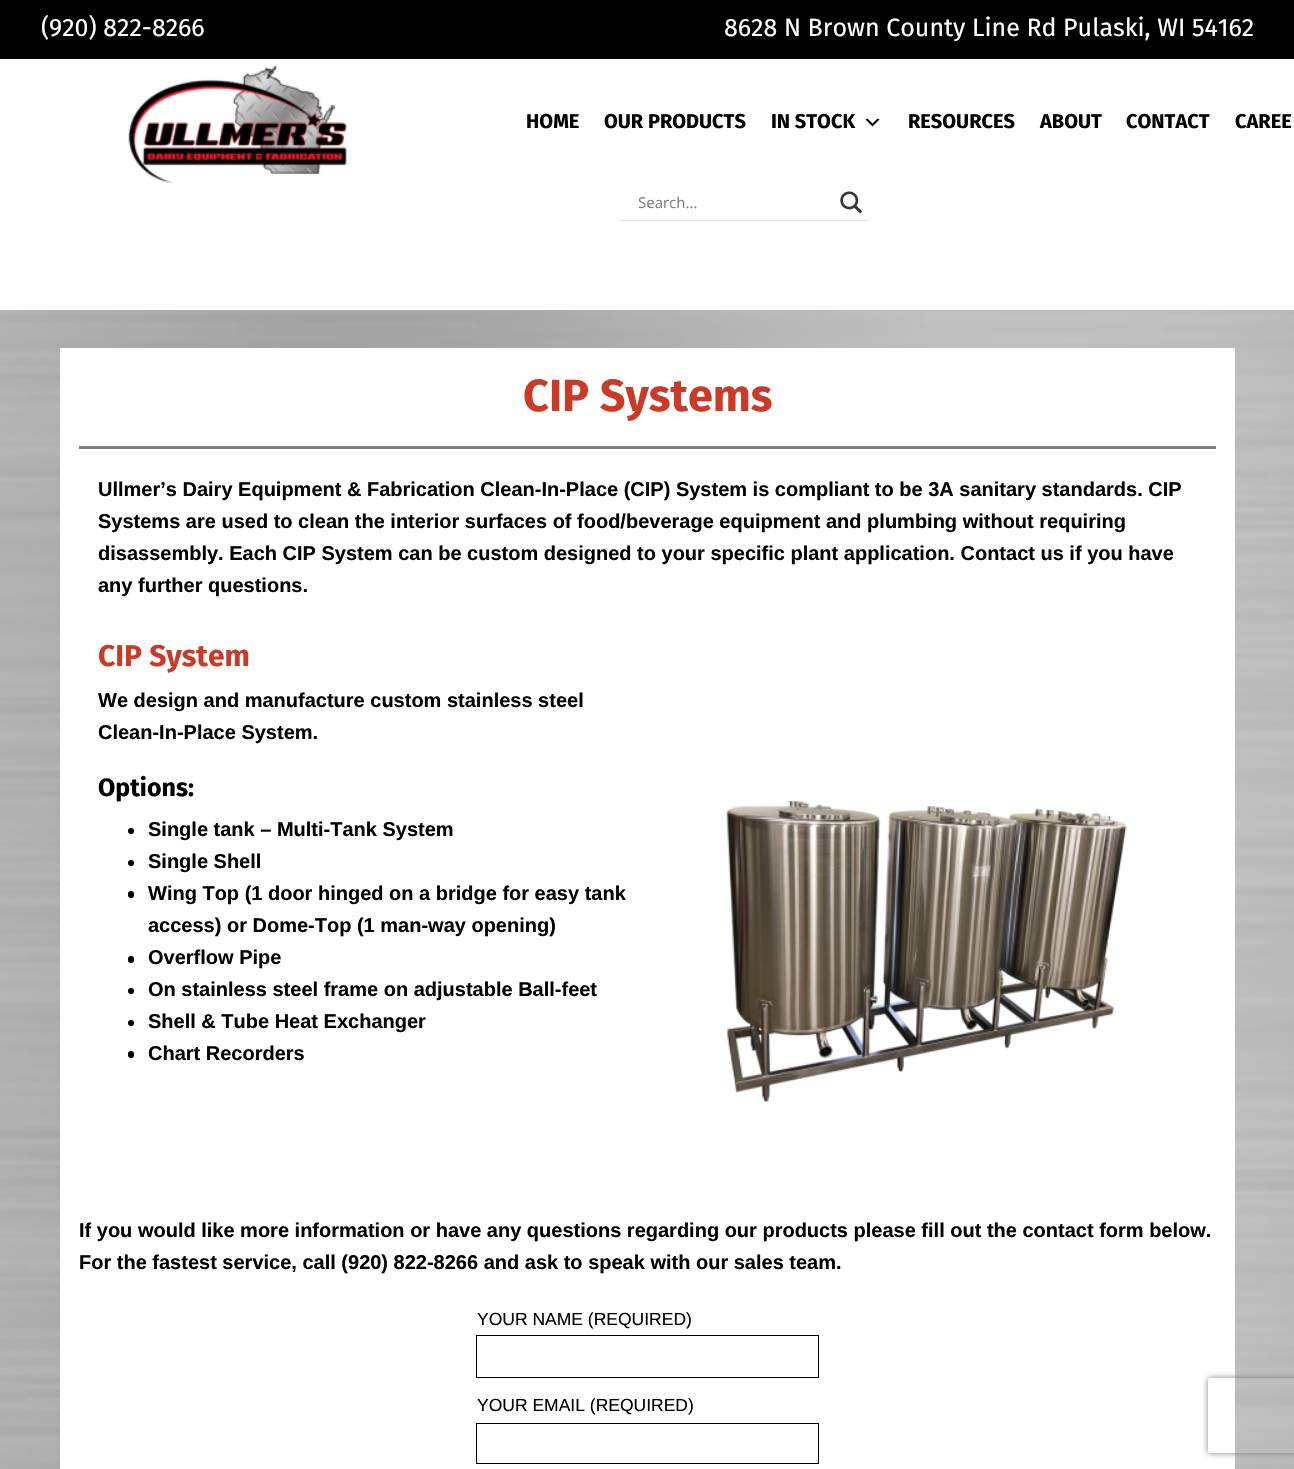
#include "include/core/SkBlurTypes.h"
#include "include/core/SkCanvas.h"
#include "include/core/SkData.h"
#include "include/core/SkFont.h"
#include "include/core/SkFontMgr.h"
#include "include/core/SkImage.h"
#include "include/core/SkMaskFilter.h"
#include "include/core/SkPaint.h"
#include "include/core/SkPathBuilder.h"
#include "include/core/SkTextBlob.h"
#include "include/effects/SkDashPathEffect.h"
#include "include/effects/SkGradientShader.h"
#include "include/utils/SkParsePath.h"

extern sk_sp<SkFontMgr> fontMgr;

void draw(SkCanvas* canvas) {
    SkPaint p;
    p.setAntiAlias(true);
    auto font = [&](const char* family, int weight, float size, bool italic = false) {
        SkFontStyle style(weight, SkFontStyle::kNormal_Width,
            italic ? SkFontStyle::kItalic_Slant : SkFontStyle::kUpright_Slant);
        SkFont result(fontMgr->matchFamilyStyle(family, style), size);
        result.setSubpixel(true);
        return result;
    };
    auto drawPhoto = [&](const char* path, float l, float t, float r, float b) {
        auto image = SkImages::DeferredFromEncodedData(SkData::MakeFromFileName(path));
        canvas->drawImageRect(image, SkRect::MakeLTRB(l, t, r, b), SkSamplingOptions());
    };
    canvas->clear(0xFFFFFFFF);
    drawPhoto("media/1.png", 0, 310, 1294, 1469);
    p.setColor(0xFF000000);
    canvas->drawRect(SkRect::MakeLTRB(0, 0, 1294, 59), p);
    auto font1 = font("Fira Sans", 400, 25);
    p.setColor(0xFFFFFFFF);
    canvas->drawString("(920) 822-8266", 41, 36, font1, p);
    canvas->drawString("8628 N Brown County Line Rd Pulaski, WI 54162", 724, 36, font1, p);
    drawPhoto("media/2.png", 128, 65, 348, 184);
    auto font2 = font("Fira Sans", 700, 20);
    p.setColor(0xFF000000);
    {
        const struct { const char* s; float x, y; } items[] = {
            {"HOME", 526, 128},
            {"OUR PRODUCTS", 604, 128},
            {"IN STOCK", 771, 128},
        };
        for (auto [s, x, y] : items) {
            canvas->drawString(s, x, y, font2, p);
        }
    }
    drawPhoto("media/3.png", 865, 118, 880, 127);
    {
        const struct { const char* s; float x, y; } items[] = {
            {"RESOURCES", 908, 128},
            {"ABOUT", 1040, 128},
            {"CONTACT", 1126, 128},
            {"CAREE", 1235, 128},
        };
        for (auto [s, x, y] : items) {
            canvas->drawString(s, x, y, font2, p);
        }
    }
    p.setColor(0xFFE4E4E4);
    canvas->drawPath(SkPathBuilder().moveTo(619, 220).lineTo(619, 221).lineTo(869, 221).lineTo(869, 186).lineTo(869, 220).close().detach(), p);
    auto font3 = font("Open Sans", 400, 15);
    p.setColor(0xFF7D7D7D);
    canvas->drawString("Search...", 638, 208, font3, p);
    drawPhoto("media/4.png", 840, 191, 863, 214);
    p.setColor(0xFFFFFFFF);
    canvas->drawRect(SkRect::MakeLTRB(60, 348, 1235, 1469), p);
    auto font4 = font("Fira Sans", 700, 45);
    p.setColor(0xFFCA3A27);
    canvas->drawString("CIP Systems", 523, 411, font4, p);
    p.setColor(0xFF808080);
    canvas->drawRect(SkRect::MakeLTRB(79, 446, 1216, 449), p);
    auto font5 = font("Liberation Sans", 700, 20);
    p.setColor(0xFF000000);
    {
        const struct { const char* s; float x, y; } items[] = {
            {"Ullmer’s Dairy Equipment & Fabrication Clean-In-Place (CIP) System is compliant to be 3A sanitary standards. CIP", 98, 496},
            {"Systems are used to clean the interior surfaces of food/beverage equipment and plumbing without requiring", 98, 528},
            {"disassembly. Each CIP System can be custom designed to your specific plant application. Contact us if you have", 98, 560},
            {"any further questions.", 98, 592},
        };
        for (auto [s, x, y] : items) {
            canvas->drawString(s, x, y, font5, p);
        }
    }
    auto font6 = font("Fira Sans", 700, 30);
    p.setColor(0xFFCA3A27);
    canvas->drawString("CIP System", 98, 666, font6, p);
    p.setColor(0xFF000000);
    canvas->drawString("We design and manufacture custom stainless steel", 98, 707, font5, p);
    canvas->drawString("Clean-In-Place System.", 98, 739, font5, p);
    auto font7 = font("Fira Sans", 700, 25);
    canvas->drawString("Options:", 98, 796, font7, p);
    canvas->drawCircle(131, 831, 3, p);
    canvas->drawString("Single tank – Multi-Tank System", 148, 836, font5, p);
    canvas->drawCircle(131, 863, 3, p);
    canvas->drawString("Single Shell", 148, 868, font5, p);
    canvas->drawRoundRect(SkRect::MakeLTRB(128, 891, 134, 898), 3, 3, p);
    canvas->drawString("Wing Top (1 door hinged on a bridge for easy tank", 148, 900, font5, p);
    canvas->drawString("access) or Dome-Top (1 man-way opening)", 148, 932, font5, p);
    canvas->drawRoundRect(SkRect::MakeLTRB(128, 956, 134, 963), 3, 3, p);
    canvas->drawString("Overflow Pipe", 148, 964, font5, p);
    canvas->drawCircle(131, 991, 3, p);
    canvas->drawString("On stainless steel frame on adjustable Ball-feet", 148, 996, font5, p);
    canvas->drawCircle(131, 1023, 3, p);
    canvas->drawString("Shell & Tube Heat Exchanger", 148, 1028, font5, p);
    canvas->drawRoundRect(SkRect::MakeLTRB(128, 1051, 134, 1058), 3, 3, p);
    canvas->drawString("Chart Recorders", 148, 1060, font5, p);
    drawPhoto("media/5.png", 726, 800, 1127, 1103);
    canvas->drawString("If you would like more information or have any questions regarding our products please fill out the contact form below.", 79, 1237, font5, p);
    canvas->drawString("For the fastest service, call (920) 822-8266 and ask to speak with our sales team.", 79, 1269, font5, p);
    auto font8 = font("Liberation Sans", 400, 17.5f);
    canvas->drawString("YOUR NAME (REQUIRED)", 477, 1325, font8, p);
    p.setStyle(SkPaint::kStroke_Style);
    p.setStrokeWidth(1);
    canvas->drawRect(SkRect::MakeLTRB(476.5f, 1335.5f, 818.5f, 1377.5f), p);
    p.setStyle(SkPaint::kFill_Style);
    canvas->drawString("YOUR EMAIL (REQUIRED)", 477, 1411, font8, p);
    p.setStyle(SkPaint::kStroke_Style);
    canvas->drawRect(SkRect::MakeLTRB(476.5f, 1423.5f, 818.5f, 1463.5f), p);
    canvas->save();
    canvas->clipPath(SkPathBuilder(SkPathFillType::kEvenOdd).moveTo(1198, 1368).lineTo(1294, 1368).lineTo(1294, 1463).lineTo(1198, 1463).close().moveTo(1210.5f, 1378).lineTo(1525.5f, 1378).cubicTo(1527, 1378, 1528, 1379, 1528, 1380.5f).lineTo(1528, 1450.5f).cubicTo(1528, 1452, 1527, 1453, 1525.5f, 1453).lineTo(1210.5f, 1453).cubicTo(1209, 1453, 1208, 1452, 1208, 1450.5f).lineTo(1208, 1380.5f).cubicTo(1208, 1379, 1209, 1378, 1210.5f, 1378).close().detach(), true);
    p.setStyle(SkPaint::kFill_Style);
    p.setColor(0xFF808080);
    p.setMaskFilter(SkMaskFilter::MakeBlur(kNormal_SkBlurStyle, 3));
    canvas->drawRoundRect(SkRect::MakeLTRB(1208, 1378, 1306, 1453), 2.5f, 2.5f, p);
    p.setMaskFilter(nullptr);
    canvas->restore();
}
